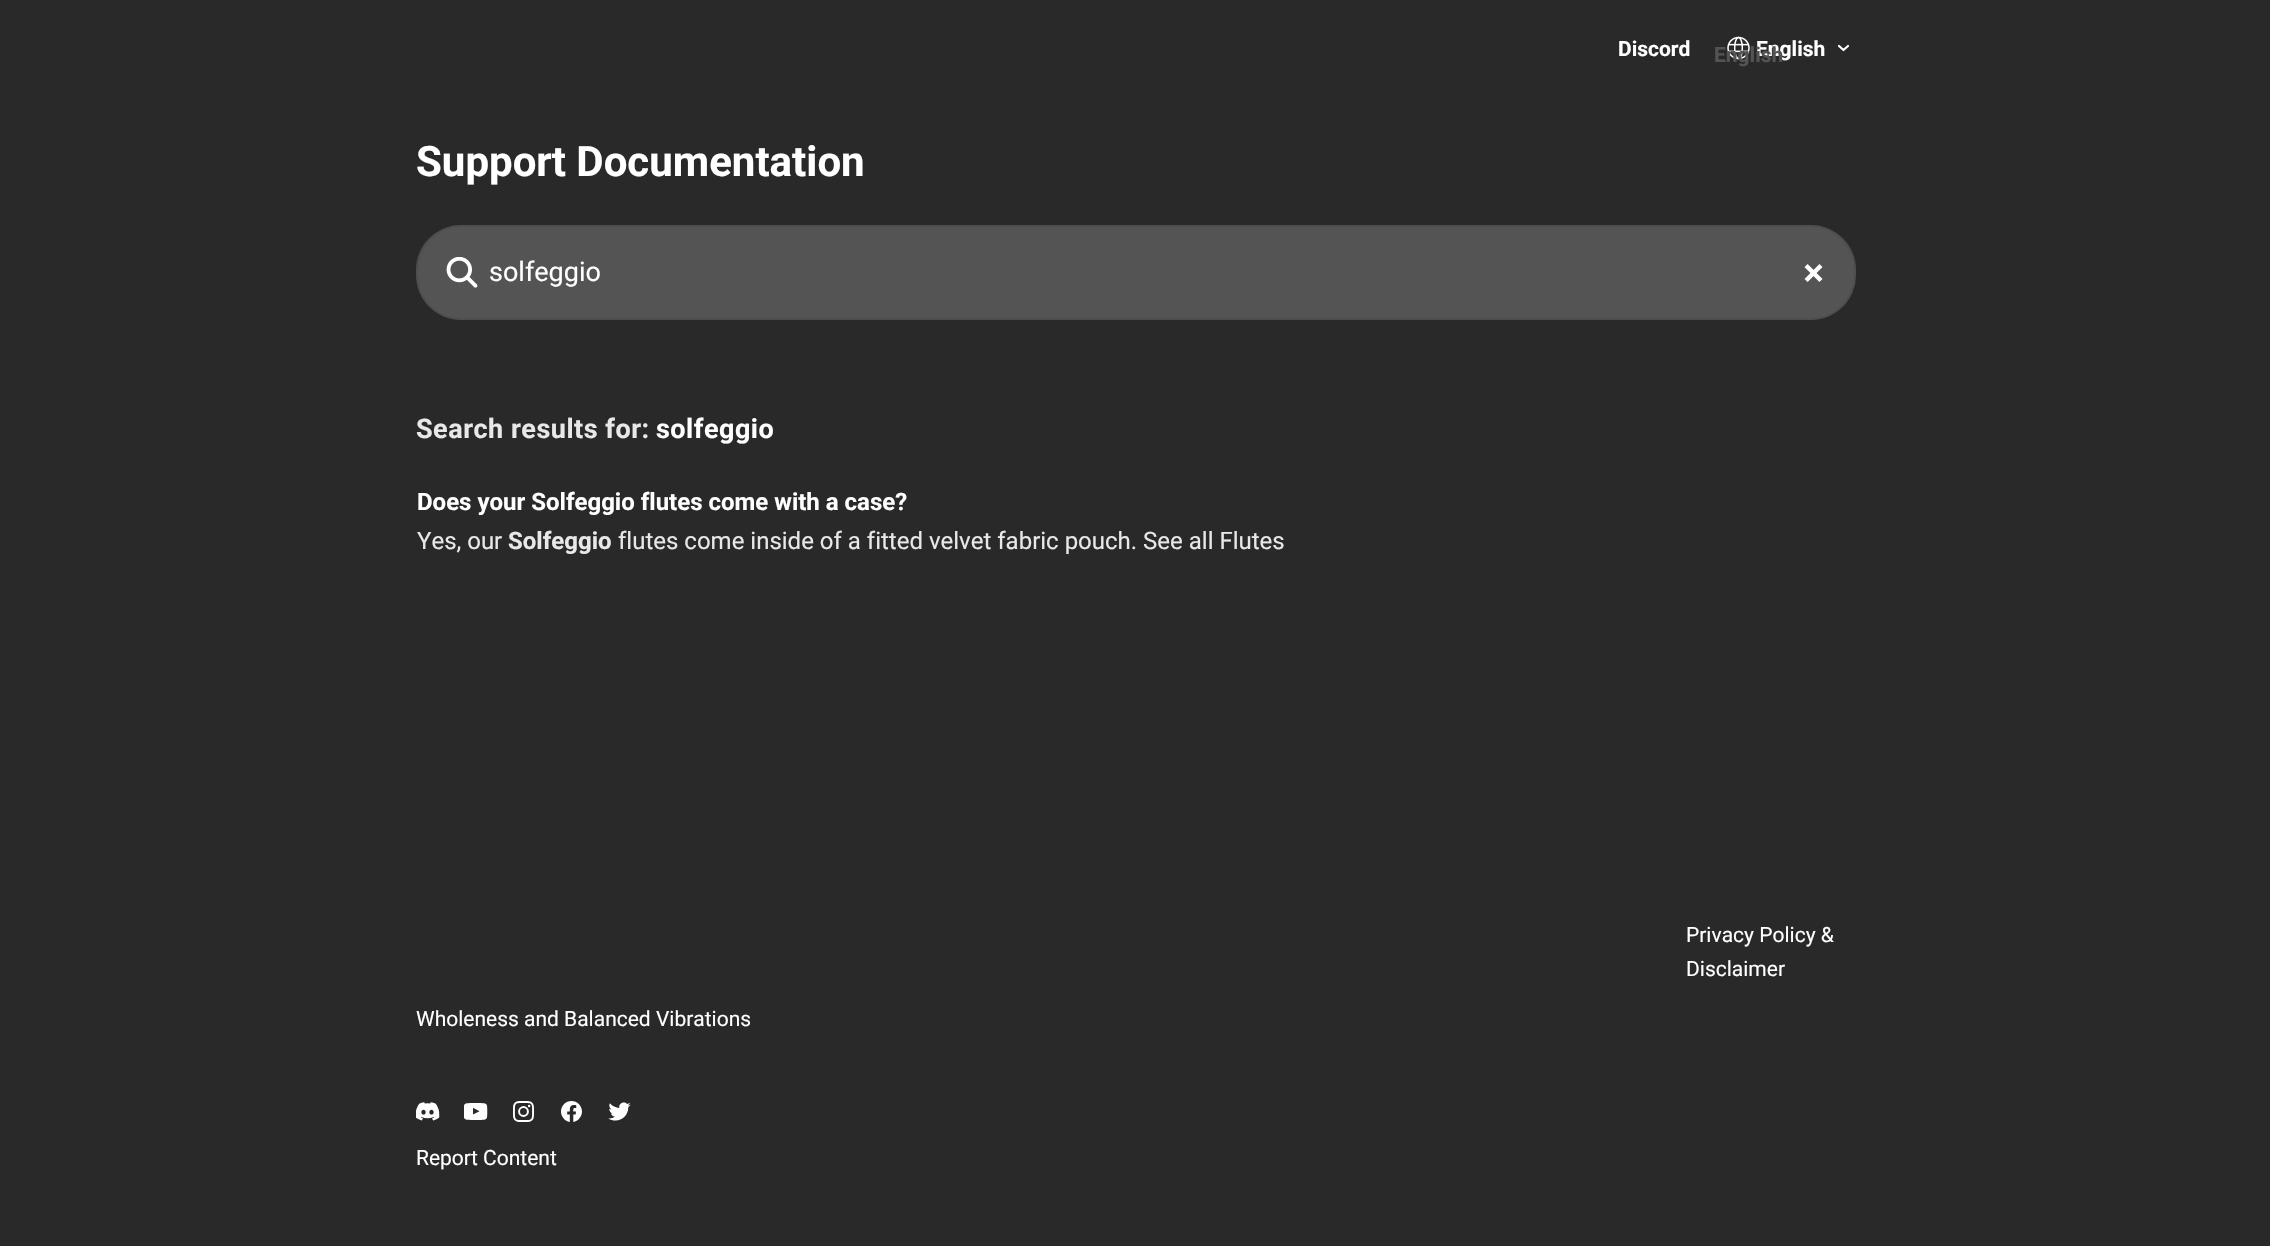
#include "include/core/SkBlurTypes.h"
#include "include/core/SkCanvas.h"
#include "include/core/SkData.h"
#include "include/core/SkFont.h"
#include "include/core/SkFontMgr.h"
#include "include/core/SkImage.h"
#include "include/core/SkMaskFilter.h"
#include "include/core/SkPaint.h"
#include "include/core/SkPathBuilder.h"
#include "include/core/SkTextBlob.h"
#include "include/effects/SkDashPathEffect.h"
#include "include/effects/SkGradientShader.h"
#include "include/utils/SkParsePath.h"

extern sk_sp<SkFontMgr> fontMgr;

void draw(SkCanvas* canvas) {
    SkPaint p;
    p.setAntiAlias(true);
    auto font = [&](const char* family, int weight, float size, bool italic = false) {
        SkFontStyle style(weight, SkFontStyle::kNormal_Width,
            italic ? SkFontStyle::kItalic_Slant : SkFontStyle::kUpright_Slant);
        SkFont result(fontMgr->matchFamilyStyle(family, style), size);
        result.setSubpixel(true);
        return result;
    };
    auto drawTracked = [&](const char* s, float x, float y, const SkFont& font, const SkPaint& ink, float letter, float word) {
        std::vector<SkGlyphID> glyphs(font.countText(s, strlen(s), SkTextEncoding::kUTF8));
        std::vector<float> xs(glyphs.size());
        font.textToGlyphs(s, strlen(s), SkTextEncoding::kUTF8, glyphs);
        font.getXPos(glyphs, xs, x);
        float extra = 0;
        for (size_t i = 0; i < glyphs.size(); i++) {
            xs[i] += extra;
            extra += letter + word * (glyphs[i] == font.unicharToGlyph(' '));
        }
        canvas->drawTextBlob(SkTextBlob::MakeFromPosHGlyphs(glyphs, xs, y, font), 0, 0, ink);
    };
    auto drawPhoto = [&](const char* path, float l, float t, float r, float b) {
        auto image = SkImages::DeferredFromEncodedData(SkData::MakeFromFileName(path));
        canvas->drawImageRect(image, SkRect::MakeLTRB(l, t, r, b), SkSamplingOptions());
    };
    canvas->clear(0xFF292929);
    auto font1 = font("Roboto", 700, 21);
    p.setColor(0xFFFFFFFF);
    canvas->drawString("Discord", 1618, 56, font1, p);
    drawPhoto("media/1.png", 1727, 36, 1750, 60);
    canvas->drawString("English", 1756, 56, font1, p);
    p.setColor(0xFF545454);
    canvas->drawString("English", 1714, 62, font1, p);
    p.setStyle(SkPaint::kStroke_Style);
    p.setStrokeWidth(2.2f);
    p.setStrokeCap(SkPaint::kRound_Cap);
    p.setStrokeJoin(SkPaint::kRound_Join);
    p.setColor(0xFFFFFFFF);
    canvas->drawPath(SkPathBuilder().moveTo(1839, 46).lineTo(1843.5f, 50).lineTo(1848, 46).detach(), p);
    auto font2 = font("Roboto", 700, 42);
    p.setStyle(SkPaint::kFill_Style);
    canvas->drawString("Support Documentation", 416, 176, font2, p);
    p.setColor(0xFF545454);
    canvas->drawRoundRect(SkRect::MakeLTRB(416, 225, 1856, 320), 45, 45, p);
    p.setStyle(SkPaint::kStroke_Style);
    p.setStrokeWidth(2);
    p.setStrokeCap(SkPaint::kButt_Cap);
    p.setStrokeJoin(SkPaint::kMiter_Join);
    p.setColor(0x14000000);
    canvas->drawRoundRect(SkRect::MakeLTRB(417, 226, 1855, 319), 44, 44, p);
    drawPhoto("media/2.png", 446, 257, 478, 288);
    auto font3 = font("Roboto", 400, 27);
    p.setStyle(SkPaint::kFill_Style);
    p.setColor(0xFFFFFFFF);
    canvas->drawString("solfeggio", 489, 281, font3, p);
    drawPhoto("media/3.png", 1804, 264, 1823, 282);
    auto font4 = font("Roboto", 700, 27);
    p.setColor(0xFFE8E8E8);
    drawTracked("Search results for:", 416, 438, font4, p, 0.5f, 0);
    p.setColor(0xFFFFFFFF);
    drawTracked("solfeggio", 656, 438, font4, p, 0.5f, 0);
    auto font5 = font("Roboto", 700, 24);
    canvas->drawString("Does your Solfeggio flutes come with a case?", 417, 510, font5, p);
    auto font6 = font("Roboto", 400, 24);
    p.setColor(0xFFE8E8E8);
    canvas->drawString("Yes, our", 417, 549, font6, p);
    canvas->drawString("Solfeggio", 508, 549, font5, p);
    canvas->drawString("flutes come inside of a fitted velvet fabric pouch. See all Flutes", 618, 549, font6, p);
    auto font7 = font("Roboto", 400, 21);
    p.setColor(0xFFFFFFFF);
    {
        const struct { const char* s; float x, y; } items[] = {
            {"Privacy Policy &", 1686, 942},
            {"Disclaimer", 1686, 976},
            {"Wholeness and Balanced Vibrations", 416, 1026},
        };
        for (auto [s, x, y] : items) {
            canvas->drawString(s, x, y, font7, p);
        }
    }
    drawPhoto("media/4.png", 416, 1102, 440, 1121);
    drawPhoto("media/5.png", 464, 1103, 488, 1120);
    drawPhoto("media/6.png", 513, 1101, 534, 1122);
    drawPhoto("media/7.png", 561, 1101, 582, 1122);
    drawPhoto("media/8.png", 608, 1102, 631, 1121);
    canvas->drawString("Report Content", 416, 1165, font7, p);
}
